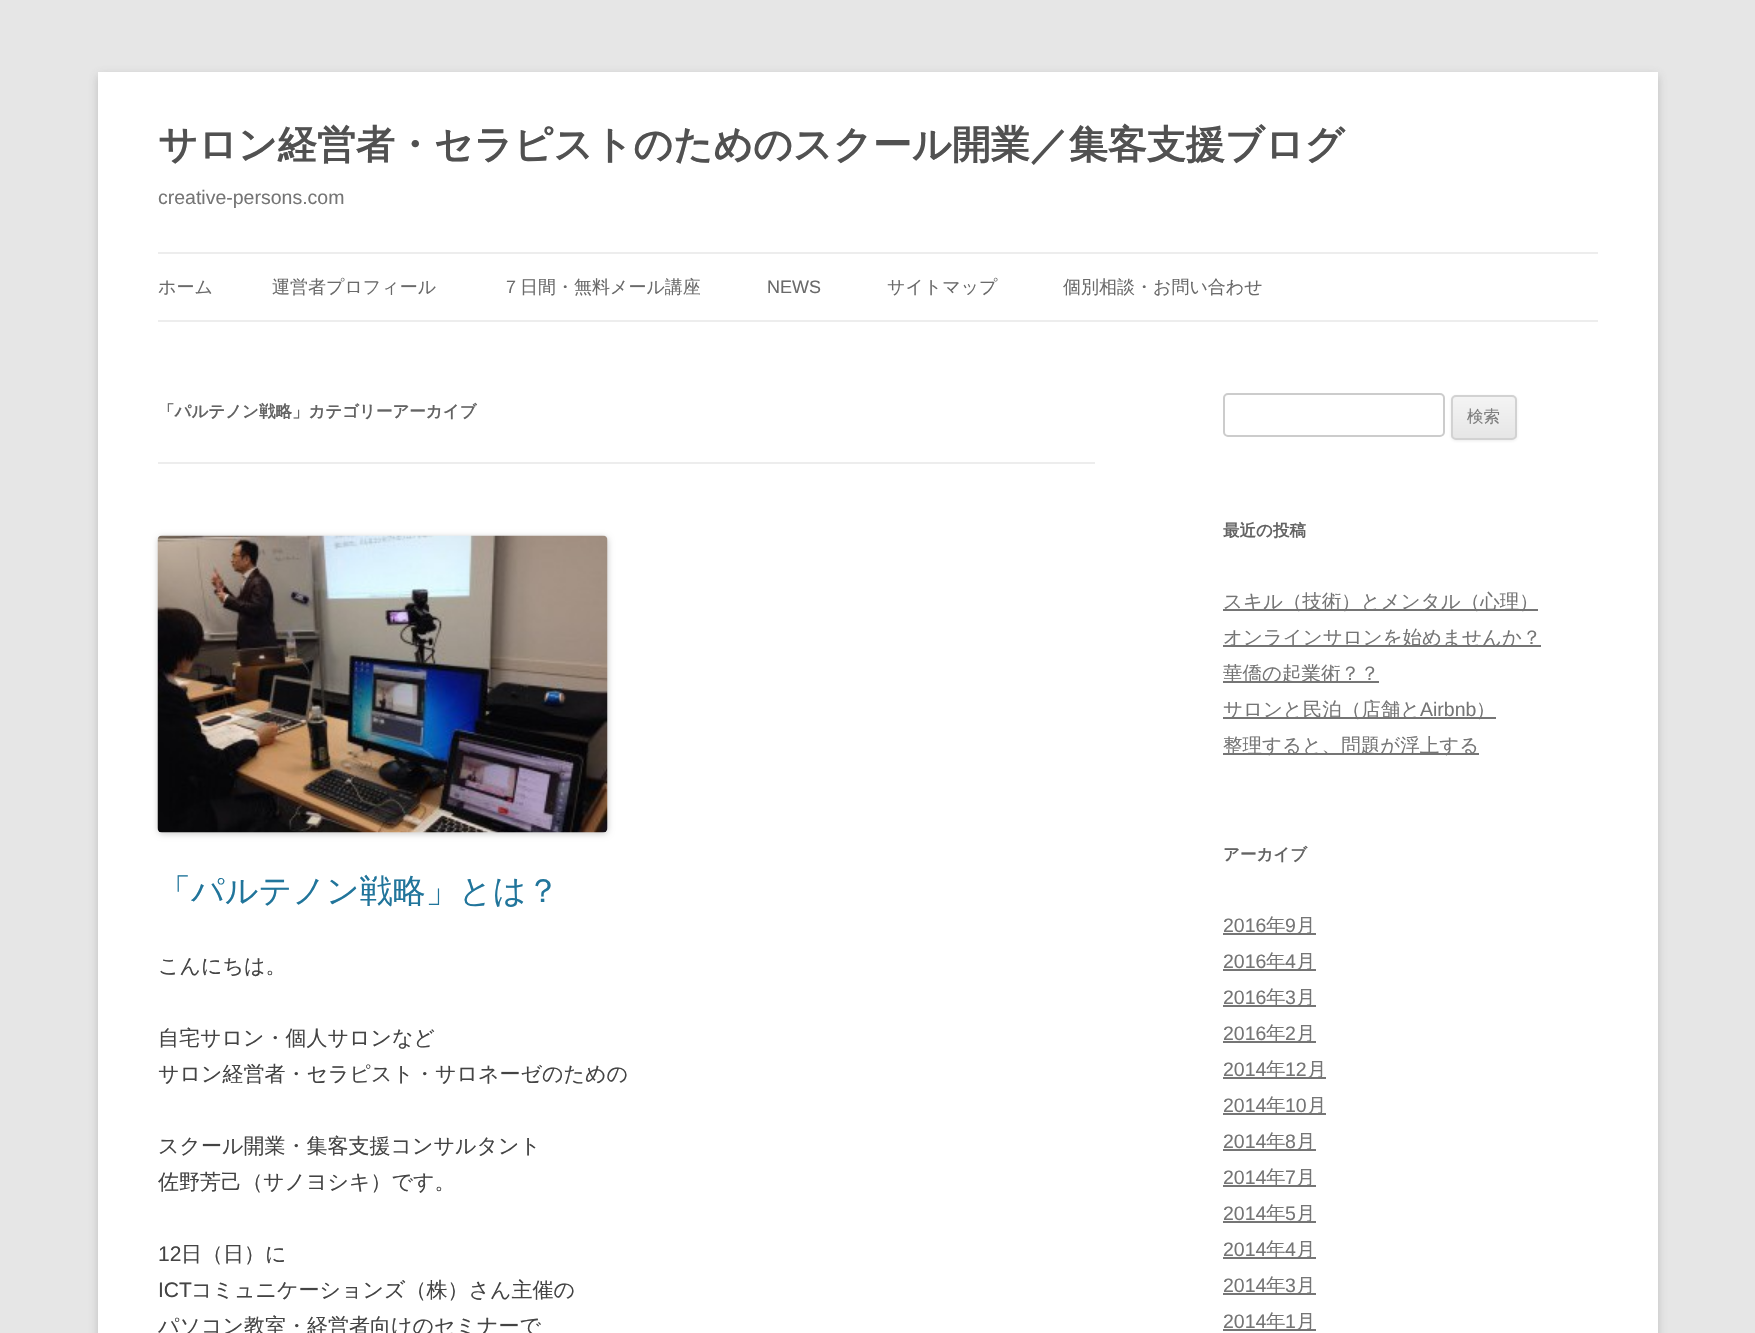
#include "include/core/SkBlurTypes.h"
#include "include/core/SkCanvas.h"
#include "include/core/SkData.h"
#include "include/core/SkFont.h"
#include "include/core/SkFontMgr.h"
#include "include/core/SkImage.h"
#include "include/core/SkMaskFilter.h"
#include "include/core/SkPaint.h"
#include "include/core/SkPathBuilder.h"
#include "include/core/SkTextBlob.h"
#include "include/effects/SkDashPathEffect.h"
#include "include/effects/SkGradientShader.h"
#include "include/utils/SkParsePath.h"

extern sk_sp<SkFontMgr> fontMgr;

void draw(SkCanvas* canvas) {
    SkPaint p;
    p.setAntiAlias(true);
    auto font = [&](const char* family, int weight, float size, bool italic = false) {
        SkFontStyle style(weight, SkFontStyle::kNormal_Width,
            italic ? SkFontStyle::kItalic_Slant : SkFontStyle::kUpright_Slant);
        SkFont result(fontMgr->matchFamilyStyle(family, style), size);
        result.setSubpixel(true);
        return result;
    };
    auto drawPhoto = [&](const char* path, float l, float t, float r, float b) {
        auto image = SkImages::DeferredFromEncodedData(SkData::MakeFromFileName(path));
        canvas->drawImageRect(image, SkRect::MakeLTRB(l, t, r, b), SkSamplingOptions());
    };
    canvas->clear(0xFFE6E6E6);
    p.setColor(0x4D646464);
    p.setMaskFilter(SkMaskFilter::MakeBlur(kNormal_SkBlurStyle, 4.5f));
    canvas->drawRect(SkRect::MakeLTRB(98, 75, 1658, 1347), p);
    p.setMaskFilter(nullptr);
    p.setColor(0xFFFFFFFF);
    canvas->drawRect(SkRect::MakeLTRB(98, 72, 1658, 1333), p);
    auto font1 = font("WenQuanYi Zen Hei", 700, 39);
    p.setColor(0xFF515151);
    canvas->drawString("サロン経営者・セラピストのためのスクール開業／集客支援ブログ", 158, 158, font1, p);
    auto font2 = font("Liberation Sans", 400, 19.5f);
    p.setColor(0xFF757575);
    canvas->drawString("creative-persons.com", 158, 204, font2, p);
    p.setColor(0xFFEDEDED);
    canvas->drawRect(SkRect::MakeLTRB(158, 252, 1598, 254), p);
    canvas->drawRect(SkRect::MakeLTRB(158, 320, 1598, 322), p);
    auto font3 = font("WenQuanYi Zen Hei", 500, 18);
    p.setColor(0xFF6A6A6A);
    {
        const struct { const char* s; float x, y; } items[] = {
            {"ホーム", 158, 293},
            {"運営者プロフィール", 272, 293},
            {"７日間・無料メール講座", 502, 293},
        };
        for (auto [s, x, y] : items) {
            canvas->drawString(s, x, y, font3, p);
        }
    }
    auto font4 = font("Liberation Sans", 400, 18);
    canvas->drawString("NEWS", 767, 293, font4, p);
    canvas->drawString("サイトマップ", 887, 293, font3, p);
    canvas->drawString("個別相談・お問い合わせ", 1063, 293, font3, p);
    p.setColor(0xFFEDEDED);
    canvas->drawRect(SkRect::MakeLTRB(158, 462, 1095, 464), p);
    auto font5 = font("WenQuanYi Zen Hei", 700, 16.5f);
    p.setColor(0xFF636363);
    canvas->drawString("「パルテノン戦略」カテゴリーアーカイブ", 158, 417, font5, p);
    p.setColor(0x33000000);
    p.setMaskFilter(SkMaskFilter::MakeBlur(kNormal_SkBlurStyle, 3));
    canvas->drawRoundRect(SkRect::MakeLTRB(158, 537, 608, 834), 5, 5, p);
    p.setMaskFilter(nullptr);
    drawPhoto("media/1.png", 157, 535, 608, 833);
    auto font6 = font("WenQuanYi Zen Hei", 500, 33);
    p.setColor(0xFF21759B);
    canvas->drawString("「パルテノン戦略」とは？", 158, 902, font6, p);
    auto font7 = font("WenQuanYi Zen Hei", 500, 21);
    p.setColor(0xFF444444);
    {
        const struct { const char* s; float x, y; } items[] = {
            {"こんにちは。", 158, 973},
            {"自宅サロン・個人サロンなど", 158, 1045},
            {"サロン経営者・セラピスト・サロネーゼのための", 158, 1081},
            {"スクール開業・集客支援コンサルタント", 158, 1153},
            {"佐野芳己（サノヨシキ）です。", 158, 1189},
        };
        for (auto [s, x, y] : items) {
            canvas->drawString(s, x, y, font7, p);
        }
    }
    auto font8 = font("Liberation Sans", 400, 21);
    canvas->drawString("12", 158, 1261, font8, p);
    canvas->drawString("日（日）に", 181, 1261, font7, p);
    canvas->drawString("ICT", 158, 1297, font8, p);
    canvas->drawString("コミュニケーションズ（株）さん主催の", 191, 1297, font7, p);
    canvas->drawString("パソコン教室・経営者向けのセミナーで", 158, 1333, font7, p);
    p.setStyle(SkPaint::kStroke_Style);
    p.setStrokeWidth(2);
    p.setColor(0xFFCCCCCC);
    canvas->drawRoundRect(SkRect::MakeLTRB(1224, 394, 1444, 436), 4, 4, p);
    p.setStyle(SkPaint::kFill_Style);
    p.setColor(0x1A404040);
    p.setMaskFilter(SkMaskFilter::MakeBlur(kNormal_SkBlurStyle, 1.5f));
    canvas->drawRoundRect(SkRect::MakeLTRB(1451, 396, 1517, 441), 5, 5, p);
    p.setMaskFilter(nullptr);
    canvas->save();
    canvas->clipPath(SkPathBuilder().moveTo(1456, 395).lineTo(1512, 395).cubicTo(1515, 395, 1517, 397, 1517, 400).lineTo(1517, 435).cubicTo(1517, 438, 1515, 440, 1512, 440).lineTo(1456, 440).cubicTo(1453, 440, 1451, 438, 1451, 435).lineTo(1451, 400).cubicTo(1451, 397, 1453, 395, 1456, 395).close().detach(), true);
    {
        const SkColor colors[] = {0xFFF4F4F4, 0xFFE6E6E6};
        const float stops[] = {0, 1};
        const SkPoint ends[] = {{1484, 396}, {1484, 438}};
        p.setShader(SkGradientShader::MakeLinear(ends, colors, stops, 2, SkTileMode::kClamp));
        p.setAlpha(255);
    }
    canvas->drawRect(SkRect::MakeLTRB(1451, 396, 1517, 438), p);
    canvas->restore();
    p.setStyle(SkPaint::kStroke_Style);
    p.setShader(nullptr);
    p.setColor(0xFFD2D2D2);
    canvas->drawRoundRect(SkRect::MakeLTRB(1452, 396, 1516, 439), 4, 4, p);
    auto font9 = font("WenQuanYi Zen Hei", 500, 16.5f);
    p.setStyle(SkPaint::kFill_Style);
    p.setColor(0xFF7C7C7C);
    canvas->drawString("検索", 1467, 422, font9, p);
    p.setColor(0xFF636363);
    canvas->drawString("最近の投稿", 1223, 536, font5, p);
    p.setColor(0xFF757575);
    canvas->drawRect(SkRect::MakeLTRB(1223, 609, 1538, 611), p);
    auto font10 = font("WenQuanYi Zen Hei", 500, 19.5f);
    canvas->drawString("スキル（技術）とメンタル（心理）", 1223, 608, font10, p);
    canvas->drawRect(SkRect::MakeLTRB(1223, 645, 1541, 647), p);
    canvas->drawString("オンラインサロンを始めませんか？", 1223, 644, font10, p);
    canvas->drawRect(SkRect::MakeLTRB(1223, 681, 1379, 683), p);
    canvas->drawString("華僑の起業術？？", 1223, 680, font10, p);
    canvas->drawRect(SkRect::MakeLTRB(1223, 717, 1496, 719), p);
    canvas->drawString("サロンと民泊（店舗と", 1223, 716, font10, p);
    canvas->drawString("Airbnb", 1420, 716, font2, p);
    canvas->drawString("）", 1476, 716, font10, p);
    canvas->drawRect(SkRect::MakeLTRB(1223, 753, 1479, 755), p);
    canvas->drawString("整理すると、問題が浮上する", 1223, 752, font10, p);
    p.setColor(0xFF636363);
    canvas->drawString("アーカイブ", 1223, 860, font5, p);
    p.setColor(0xFF757575);
    canvas->drawString("2016", 1223, 932, font2, p);
    canvas->drawRect(SkRect::MakeLTRB(1223, 933, 1316, 935), p);
    canvas->drawString("年", 1266, 932, font10, p);
    canvas->drawString("9", 1285, 932, font2, p);
    canvas->drawString("月", 1296, 932, font10, p);
    canvas->drawString("2016", 1223, 968, font2, p);
    canvas->drawRect(SkRect::MakeLTRB(1223, 969, 1316, 971), p);
    canvas->drawString("年", 1266, 968, font10, p);
    canvas->drawString("4", 1285, 968, font2, p);
    canvas->drawString("月", 1296, 968, font10, p);
    canvas->drawString("2016", 1223, 1004, font2, p);
    canvas->drawRect(SkRect::MakeLTRB(1223, 1005, 1316, 1007), p);
    canvas->drawString("年", 1266, 1004, font10, p);
    canvas->drawString("3", 1285, 1004, font2, p);
    canvas->drawString("月", 1296, 1004, font10, p);
    canvas->drawString("2016", 1223, 1040, font2, p);
    canvas->drawRect(SkRect::MakeLTRB(1223, 1041, 1316, 1043), p);
    canvas->drawString("年", 1266, 1040, font10, p);
    canvas->drawString("2", 1285, 1040, font2, p);
    canvas->drawString("月", 1296, 1040, font10, p);
    canvas->drawString("2014", 1223, 1076, font2, p);
    canvas->drawRect(SkRect::MakeLTRB(1223, 1077, 1326, 1079), p);
    canvas->drawString("年", 1266, 1076, font10, p);
    canvas->drawString("12", 1285, 1076, font2, p);
    canvas->drawString("月", 1307, 1076, font10, p);
    canvas->drawString("2014", 1223, 1112, font2, p);
    canvas->drawRect(SkRect::MakeLTRB(1223, 1113, 1326, 1115), p);
    canvas->drawString("年", 1266, 1112, font10, p);
    canvas->drawString("10", 1285, 1112, font2, p);
    canvas->drawString("月", 1307, 1112, font10, p);
    canvas->drawString("2014", 1223, 1148, font2, p);
    canvas->drawRect(SkRect::MakeLTRB(1223, 1149, 1316, 1151), p);
    canvas->drawString("年", 1266, 1148, font10, p);
    canvas->drawString("8", 1285, 1148, font2, p);
    canvas->drawString("月", 1296, 1148, font10, p);
    canvas->drawString("2014", 1223, 1184, font2, p);
    canvas->drawRect(SkRect::MakeLTRB(1223, 1185, 1316, 1187), p);
    canvas->drawString("年", 1266, 1184, font10, p);
    canvas->drawString("7", 1285, 1184, font2, p);
    canvas->drawString("月", 1296, 1184, font10, p);
    canvas->drawString("2014", 1223, 1220, font2, p);
    canvas->drawRect(SkRect::MakeLTRB(1223, 1221, 1316, 1223), p);
    canvas->drawString("年", 1266, 1220, font10, p);
    canvas->drawString("5", 1285, 1220, font2, p);
    canvas->drawString("月", 1296, 1220, font10, p);
    canvas->drawString("2014", 1223, 1256, font2, p);
    canvas->drawRect(SkRect::MakeLTRB(1223, 1257, 1316, 1259), p);
    canvas->drawString("年", 1266, 1256, font10, p);
    canvas->drawString("4", 1285, 1256, font2, p);
    canvas->drawString("月", 1296, 1256, font10, p);
    canvas->drawString("2014", 1223, 1292, font2, p);
    canvas->drawRect(SkRect::MakeLTRB(1223, 1293, 1316, 1295), p);
    canvas->drawString("年", 1266, 1292, font10, p);
    canvas->drawString("3", 1285, 1292, font2, p);
    canvas->drawString("月", 1296, 1292, font10, p);
    canvas->drawString("2014", 1223, 1328, font2, p);
    canvas->drawRect(SkRect::MakeLTRB(1223, 1329, 1316, 1331), p);
    canvas->drawString("年", 1266, 1328, font10, p);
    canvas->drawString("1", 1285, 1328, font2, p);
    canvas->drawString("月", 1296, 1328, font10, p);
}
